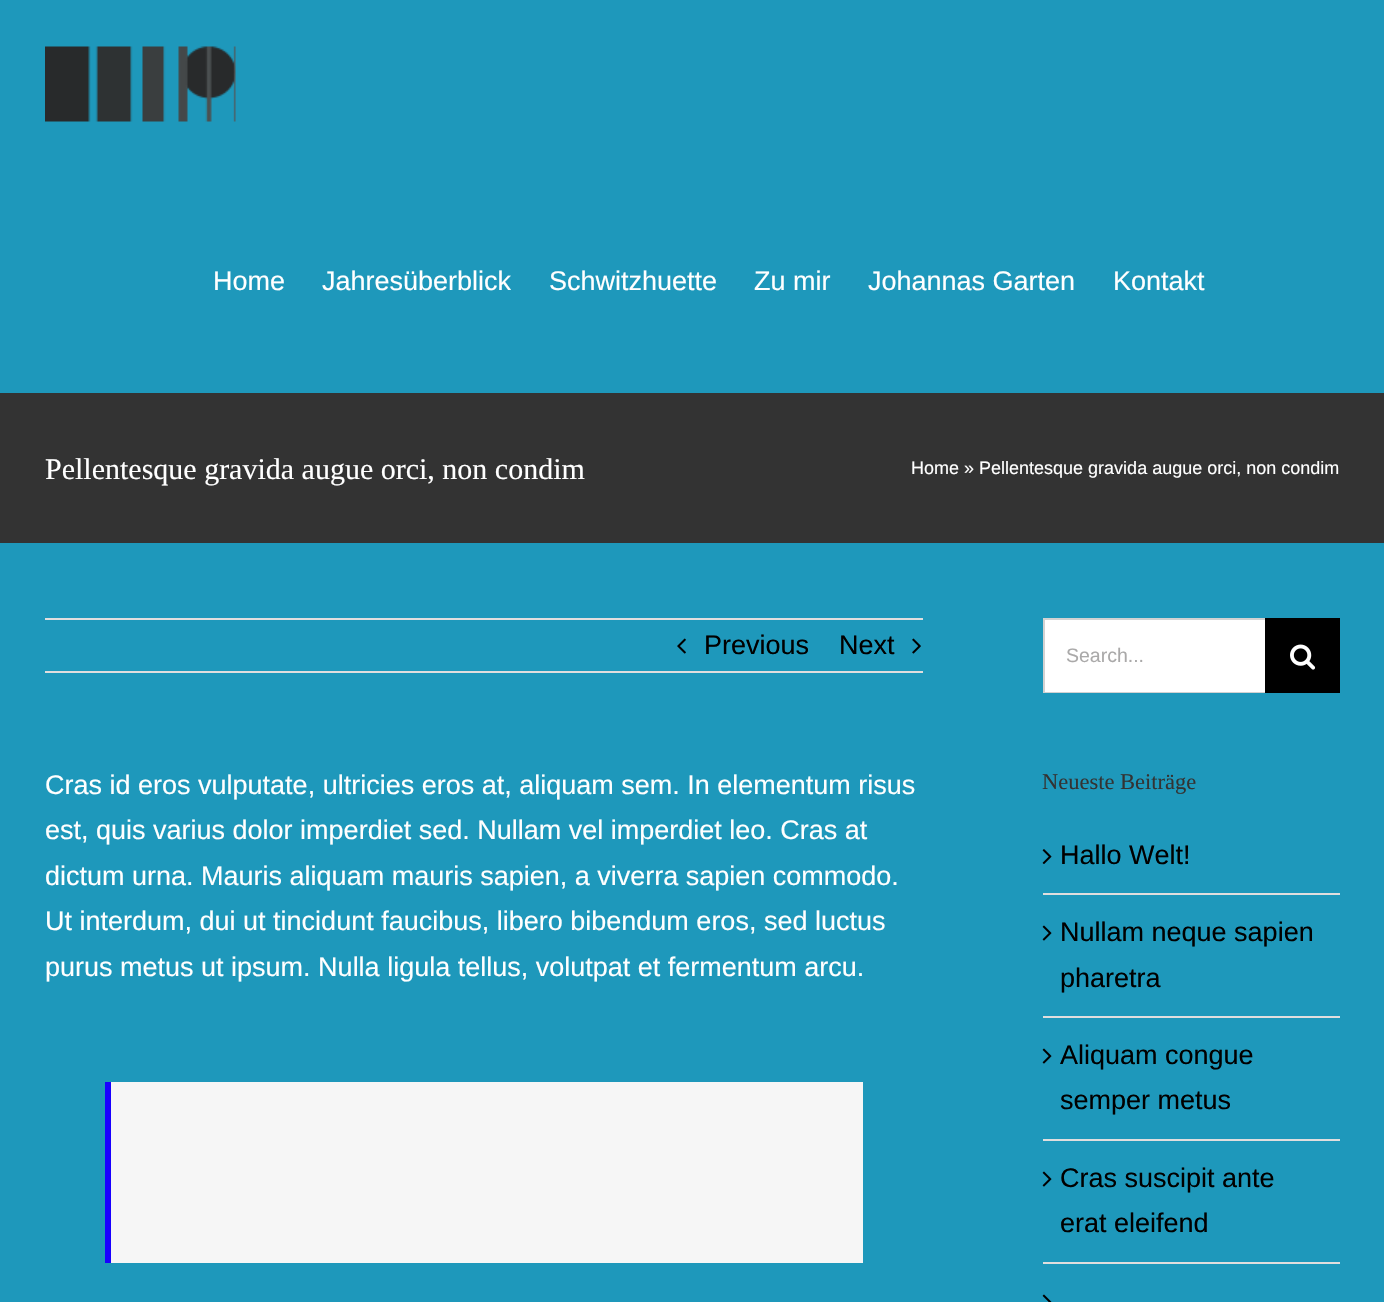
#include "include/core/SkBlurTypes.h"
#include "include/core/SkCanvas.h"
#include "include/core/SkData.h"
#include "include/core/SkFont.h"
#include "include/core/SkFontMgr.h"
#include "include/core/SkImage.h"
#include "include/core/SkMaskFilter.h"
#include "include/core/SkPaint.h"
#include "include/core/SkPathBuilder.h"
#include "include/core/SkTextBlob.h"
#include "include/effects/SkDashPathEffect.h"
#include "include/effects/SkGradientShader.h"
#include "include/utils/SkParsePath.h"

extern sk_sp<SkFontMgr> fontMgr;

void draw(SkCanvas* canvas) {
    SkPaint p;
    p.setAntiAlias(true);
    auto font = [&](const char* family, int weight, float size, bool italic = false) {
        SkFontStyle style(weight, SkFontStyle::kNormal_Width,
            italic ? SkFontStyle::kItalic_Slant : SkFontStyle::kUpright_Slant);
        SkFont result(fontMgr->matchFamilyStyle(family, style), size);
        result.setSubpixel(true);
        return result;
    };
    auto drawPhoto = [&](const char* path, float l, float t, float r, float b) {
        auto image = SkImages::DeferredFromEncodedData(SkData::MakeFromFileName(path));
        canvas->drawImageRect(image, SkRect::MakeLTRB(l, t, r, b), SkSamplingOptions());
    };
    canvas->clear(0xFF1E98BB);
    drawPhoto("media/1.png", 45, 46, 236, 122);
    auto font1 = font("Liberation Sans", 400, 27);
    p.setColor(0xFFFFFFFF);
    {
        const struct { const char* s; float x, y; } items[] = {
            {"Home", 213, 290},
            {"Jahresüberblick", 322, 290},
            {"Schwitzhuette", 549, 290},
            {"Zu mir", 754, 290},
            {"Johannas Garten", 868, 290},
            {"Kontakt", 1113, 290},
        };
        for (auto [s, x, y] : items) {
            canvas->drawString(s, x, y, font1, p);
        }
    }
    p.setColor(0xFF333333);
    canvas->drawRect(SkRect::MakeLTRB(0, 393, 1384, 543), p);
    auto font2 = font("Liberation Serif", 400, 30);
    p.setColor(0xFFFFFFFF);
    canvas->drawString("Pellentesque gravida augue orci, non condim", 45, 479, font2, p);
    auto font3 = font("Liberation Sans", 400, 18);
    canvas->drawString("Home » Pellentesque gravida augue orci, non condim", 911, 474, font3, p);
    p.setColor(0xFFE0DEDE);
    canvas->drawRect(SkRect::MakeLTRB(45, 618, 923, 620), p);
    canvas->drawRect(SkRect::MakeLTRB(45, 671, 923, 673), p);
    drawPhoto("media/2.png", 677, 638, 686, 654);
    p.setColor(0xFF000000);
    canvas->drawString("Previous", 704, 654, font1, p);
    canvas->drawString("Next", 839, 654, font1, p);
    drawPhoto("media/3.png", 912, 638, 921, 654);
    p.setColor(0xFFFFFFFF);
    {
        const struct { const char* s; float x, y; } items[] = {
            {"Cras id eros vulputate, ultricies eros at, aliquam sem. In elementum risus", 45, 794},
            {"est, quis varius dolor imperdiet sed. Nullam vel imperdiet leo. Cras at", 45, 839},
            {"dictum urna. Mauris aliquam mauris sapien, a viverra sapien commodo.", 45, 885},
            {"Ut interdum, dui ut tincidunt faucibus, libero bibendum eros, sed luctus", 45, 930},
            {"purus metus ut ipsum. Nulla ligula tellus, volutpat et fermentum arcu.", 45, 976},
        };
        for (auto [s, x, y] : items) {
            canvas->drawString(s, x, y, font1, p);
        }
    }
    {
        const struct { float l, t, r, b; SkColor color; } items[] = {
            {111, 1082, 863, 1263, 0xFFF6F6F6},
            {105, 1082, 111, 1263, 0xFF1900FF},
            {1045, 620, 1265, 692, 0xFFFFFFFF},
            {1043, 618, 1265, 620, 0xFFD2D2D2},
            {1043, 692, 1265, 693, 0xFFD2D2D2},
            {1043, 618, 1045, 693, 0xFFD2D2D2},
        };
        for (auto [l, t, r, b, color] : items) {
            p.setColor(color);
            canvas->drawRect(SkRect::MakeLTRB(l, t, r, b), p);
        }
    }
    auto font4 = font("Liberation Sans", 400, 19.5f);
    p.setColor(0xFFAAA9A9);
    canvas->drawString("Search...", 1066, 662, font4, p);
    p.setColor(0xFF000000);
    canvas->drawRect(SkRect::MakeLTRB(1265, 618, 1340, 693), p);
    drawPhoto("media/4.png", 1290, 644, 1316, 670);
    auto font5 = font("Liberation Serif", 400, 22.5f);
    p.setColor(0xFF333333);
    canvas->drawString("Neueste Beiträge", 1042, 789, font5, p);
    p.setColor(0xFFE0DEDE);
    canvas->drawRect(SkRect::MakeLTRB(1043, 893, 1340, 895), p);
    drawPhoto("media/5.png", 1042, 849, 1052, 864);
    p.setColor(0xFF000000);
    canvas->drawString("Hallo Welt!", 1060, 864, font1, p);
    p.setColor(0xFFE0DEDE);
    canvas->drawRect(SkRect::MakeLTRB(1043, 1016, 1340, 1018), p);
    drawPhoto("media/6.png", 1042, 925, 1052, 941);
    p.setColor(0xFF000000);
    canvas->drawString("Nullam neque sapien", 1060, 941, font1, p);
    canvas->drawString("pharetra", 1060, 987, font1, p);
    p.setColor(0xFFE0DEDE);
    canvas->drawRect(SkRect::MakeLTRB(1043, 1139, 1340, 1141), p);
    drawPhoto("media/6.png", 1042, 1048, 1052, 1064);
    p.setColor(0xFF000000);
    canvas->drawString("Aliquam congue", 1060, 1064, font1, p);
    canvas->drawString("semper metus", 1060, 1109, font1, p);
    p.setColor(0xFFE0DEDE);
    canvas->drawRect(SkRect::MakeLTRB(1043, 1262, 1340, 1264), p);
    drawPhoto("media/6.png", 1042, 1171, 1052, 1187);
    p.setColor(0xFF000000);
    canvas->drawString("Cras suscipit ante", 1060, 1187, font1, p);
    canvas->drawString("erat eleifend", 1060, 1232, font1, p);
    drawPhoto("media/7.png", 1042, 1294, 1052, 1302);
}
